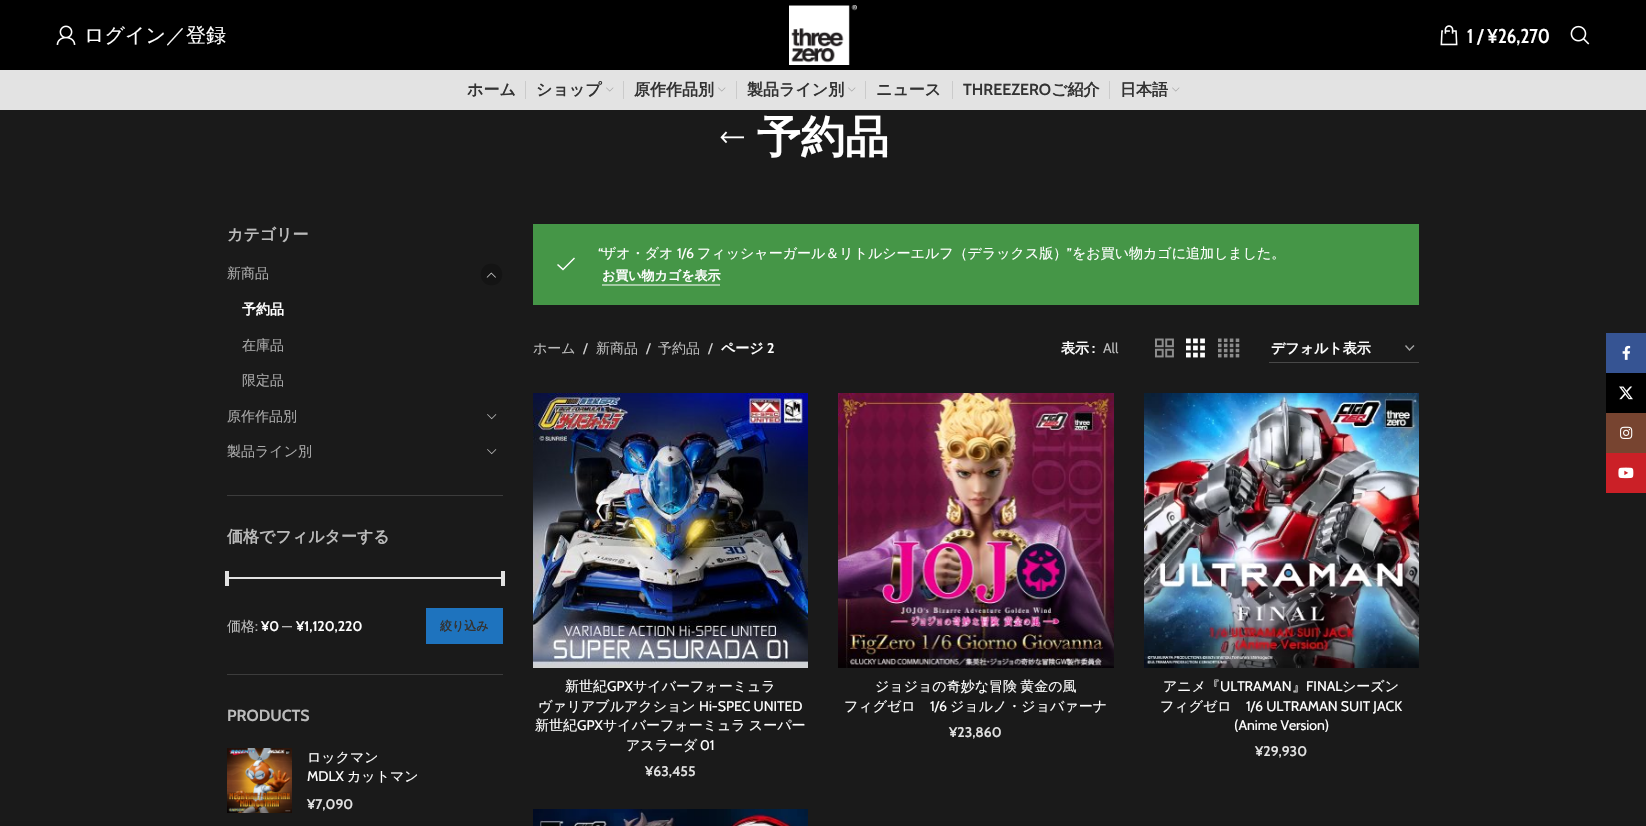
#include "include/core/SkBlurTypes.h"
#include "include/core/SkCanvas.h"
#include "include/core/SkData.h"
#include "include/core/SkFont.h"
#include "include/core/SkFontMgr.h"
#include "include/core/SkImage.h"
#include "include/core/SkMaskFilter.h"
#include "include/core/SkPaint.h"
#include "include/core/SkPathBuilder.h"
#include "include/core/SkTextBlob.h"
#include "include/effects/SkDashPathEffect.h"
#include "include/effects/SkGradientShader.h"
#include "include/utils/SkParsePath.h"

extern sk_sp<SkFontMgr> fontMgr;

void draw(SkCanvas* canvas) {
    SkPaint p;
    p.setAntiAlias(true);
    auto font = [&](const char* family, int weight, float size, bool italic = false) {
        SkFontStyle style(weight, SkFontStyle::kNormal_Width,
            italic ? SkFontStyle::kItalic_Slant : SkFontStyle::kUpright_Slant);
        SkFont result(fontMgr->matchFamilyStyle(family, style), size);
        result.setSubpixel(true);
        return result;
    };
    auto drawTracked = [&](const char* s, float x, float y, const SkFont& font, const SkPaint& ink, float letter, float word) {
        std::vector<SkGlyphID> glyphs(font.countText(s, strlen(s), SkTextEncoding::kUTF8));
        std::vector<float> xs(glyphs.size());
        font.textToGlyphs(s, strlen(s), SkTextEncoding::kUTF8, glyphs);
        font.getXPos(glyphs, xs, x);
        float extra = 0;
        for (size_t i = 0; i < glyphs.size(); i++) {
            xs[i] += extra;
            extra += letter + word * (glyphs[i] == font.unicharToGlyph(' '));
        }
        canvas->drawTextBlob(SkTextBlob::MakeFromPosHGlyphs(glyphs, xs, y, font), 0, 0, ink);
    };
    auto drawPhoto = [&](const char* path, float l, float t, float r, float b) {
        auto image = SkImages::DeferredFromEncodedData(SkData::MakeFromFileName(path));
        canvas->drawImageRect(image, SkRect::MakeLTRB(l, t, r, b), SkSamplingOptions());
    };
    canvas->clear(0xFF1A1A1A);
    p.setColor(0xFF000000);
    canvas->drawRect(SkRect::MakeLTRB(0, 0, 1646, 70), p);
    drawPhoto("media/1.png", 56, 25, 76, 45);
    auto font1 = font("WenQuanYi Zen Hei", 500, 20);
    p.setColor(0xFFFFFFFF);
    canvas->drawString("ログイン／登録", 84, 42, font1, p);
    drawPhoto("media/2.png", 789, 5, 857, 65);
    drawPhoto("media/3.png", 1440, 25, 1458, 46);
    auto font2 = font("Cabin Condensed", 500, 20);
    canvas->drawString("1 / ¥26,270", 1467, 43, font2, p);
    drawPhoto("media/4.png", 1570, 25, 1590, 45);
    p.setColor(0xFFE3E3E3);
    canvas->drawRect(SkRect::MakeLTRB(0, 70, 1646, 110), p);
    auto font3 = font("WenQuanYi Zen Hei", 700, 16);
    p.setColor(0xFF333333);
    canvas->drawString("ホーム", 467, 95, font3, p);
    p.setColor(0xFFCBCBCB);
    canvas->drawRect(SkRect::MakeLTRB(525, 81, 526, 99), p);
    p.setColor(0xFF333333);
    canvas->drawString("ショップ", 536, 95, font3, p);
    drawPhoto("media/5.png", 606, 87, 614, 92);
    p.setColor(0xFFCBCBCB);
    canvas->drawRect(SkRect::MakeLTRB(623, 81, 624, 99), p);
    p.setColor(0xFF333333);
    canvas->drawString("原作作品別", 634, 95, font3, p);
    drawPhoto("media/5.png", 718, 87, 726, 92);
    p.setColor(0xFFCBCBCB);
    canvas->drawRect(SkRect::MakeLTRB(736, 81, 737, 99), p);
    p.setColor(0xFF333333);
    canvas->drawString("製品ライン別", 747, 95, font3, p);
    drawPhoto("media/5.png", 848, 87, 856, 92);
    p.setColor(0xFFCBCBCB);
    canvas->drawRect(SkRect::MakeLTRB(865, 81, 866, 99), p);
    p.setColor(0xFF333333);
    canvas->drawString("ニュース", 876, 95, font3, p);
    p.setColor(0xFFCBCBCB);
    canvas->drawRect(SkRect::MakeLTRB(952, 81, 953, 99), p);
    auto font4 = font("Cabin", 600, 16);
    p.setColor(0xFF333333);
    canvas->drawString("THREEZERO", 963, 95, font4, p);
    canvas->drawString("ご紹介", 1051, 95, font3, p);
    p.setColor(0xFFCBCBCB);
    canvas->drawRect(SkRect::MakeLTRB(1109, 81, 1110, 99), p);
    p.setColor(0xFF333333);
    canvas->drawString("日本語", 1120, 95, font3, p);
    drawPhoto("media/5.png", 1172, 87, 1180, 92);
    drawPhoto("media/6.png", 720, 131, 744, 144);
    auto font5 = font("WenQuanYi Zen Hei", 700, 44);
    p.setColor(0xFFFFFFFF);
    canvas->drawString("予約品", 757, 152, font5, p);
    p.setColor(0xFF3C3C3C);
    canvas->drawRect(SkRect::MakeLTRB(227, 495, 503, 496), p);
    p.setColor(0xFFBBBBBB);
    canvas->drawString("カテゴリー", 227, 240, font3, p);
    auto font6 = font("WenQuanYi Zen Hei", 500, 14);
    p.setColor(0xFFAAAAAA);
    canvas->drawString("新商品", 227, 278, font6, p);
    p.setColor(0xFF141414);
    canvas->drawPath(SkPathBuilder().moveTo(491.5f, 285.5f).cubicTo(477, 285.5f, 477, 263.5f, 491.5f, 263.5f).cubicTo(506, 263.5f, 506, 285.5f, 491.5f, 285.5f).close().detach(), p);
    drawPhoto("media/7.png", 486, 272, 496, 278);
    auto font7 = font("WenQuanYi Zen Hei", 700, 14);
    p.setColor(0xFFFFFFFF);
    canvas->drawString("予約品", 242, 314, font7, p);
    p.setColor(0xFFAAAAAA);
    {
        const struct { const char* s; float x, y; } items[] = {
            {"在庫品", 242, 350},
            {"限定品", 242, 385},
            {"原作作品別", 227, 421},
        };
        for (auto [s, x, y] : items) {
            canvas->drawString(s, x, y, font6, p);
        }
    }
    drawPhoto("media/8.png", 487, 414, 497, 420);
    canvas->drawString("製品ライン別", 227, 456, font6, p);
    drawPhoto("media/8.png", 487, 449, 497, 455);
    p.setColor(0xFF3C3C3C);
    canvas->drawRect(SkRect::MakeLTRB(227, 674, 503, 675), p);
    p.setColor(0xFFBBBBBB);
    canvas->drawString("価格でフィルターする", 227, 542, font3, p);
    {
        const struct { float l, t, r, b; SkColor color; } items[] = {
            {227, 577, 503, 579, 0xFFE2E2E2},
            {225, 571, 229, 586, 0xFFE2E2E2},
            {501, 571, 505, 586, 0xFFE2E2E2},
        };
        for (auto [l, t, r, b, color] : items) {
            p.setColor(color);
            canvas->drawRect(SkRect::MakeLTRB(l, t, r, b), p);
        }
    }
    p.setColor(0xFFBBBBBB);
    canvas->drawString("価格", 227, 631, font6, p);
    auto font8 = font("Cabin", 400, 14);
    canvas->drawString(":", 255, 631, font8, p);
    auto font9 = font("Cabin", 600, 14);
    p.setColor(0xFFFFFFFF);
    canvas->drawString("¥0", 261, 631, font9, p);
    p.setColor(0xFFBBBBBB);
    canvas->drawString("—", 282, 631, font8, p);
    p.setColor(0xFFFFFFFF);
    canvas->drawString("¥1,120,220", 296, 631, font9, p);
    p.setColor(0xFF1E73BE);
    canvas->drawRect(SkRect::MakeLTRB(426, 608, 503, 644), p);
    auto font10 = font("WenQuanYi Zen Hei", 700, 12);
    p.setColor(0xFF333333);
    canvas->drawString("絞り込み", 440, 630, font10, p);
    auto font11 = font("Cabin", 700, 16);
    p.setColor(0xFFBBBBBB);
    canvas->drawString("PRODUCTS", 227, 721, font11, p);
    drawPhoto("media/9.png", 227, 748, 292, 813);
    p.setColor(0xFFFFFFFF);
    canvas->drawString("ロックマン", 307, 762, font6, p);
    canvas->drawString("MDLX", 307, 781, font8, p);
    canvas->drawString("カットマン", 347, 781, font6, p);
    p.setColor(0xFFE2E2E2);
    canvas->drawString("¥7,090", 307, 809, font9, p);
    p.setColor(0xFF459647);
    canvas->drawRect(SkRect::MakeLTRB(533, 224, 1419, 305), p);
    p.setColor(0xFFFFFFFF);
    canvas->drawString("“", 598, 258, font8, p);
    canvas->drawString("ザオ・ダオ", 602, 258, font6, p);
    canvas->drawString("1/6", 677, 258, font8, p);
    canvas->drawString("フィッシャーガール＆リトルシーエルフ（デラックス版）", 697, 258, font6, p);
    canvas->drawString("”", 1067, 258, font8, p);
    canvas->drawString("をお買い物カゴに追加しました。", 1072, 258, font6, p);
    canvas->drawPath(SkPathBuilder().moveTo(575, 258.5f).lineTo(574, 257.5f).lineTo(563, 268.5f).lineTo(558, 264).lineTo(557, 265).lineTo(563, 270.5f).close().detach(), p);
    p.setColor(0xFFA2CBA3);
    canvas->drawRect(SkRect::MakeLTRB(602, 284, 720, 286), p);
    auto font12 = font("WenQuanYi Zen Hei", 700, 13);
    p.setColor(0xFFFFFFFF);
    canvas->drawString("お買い物カゴを表示", 602, 280, font12, p);
    p.setColor(0xFFBBBBBB);
    canvas->drawString("ホーム", 533, 353, font6, p);
    p.setColor(0xFFD1D1D1);
    canvas->drawString("/", 583, 353, font8, p);
    p.setColor(0xFFBBBBBB);
    canvas->drawString("新商品", 596, 353, font6, p);
    p.setColor(0xFFD1D1D1);
    canvas->drawString("/", 646, 353, font8, p);
    p.setColor(0xFFBBBBBB);
    canvas->drawString("予約品", 658, 353, font6, p);
    p.setColor(0xFFD1D1D1);
    canvas->drawString("/", 708, 353, font8, p);
    p.setColor(0xFFFFFFFF);
    canvas->drawString("ページ", 721, 353, font7, p);
    canvas->drawString("2", 767, 353, font9, p);
    canvas->drawString("表示", 1061, 353, font7, p);
    canvas->drawString(":", 1092, 353, font9, p);
    p.setColor(0xFFBBBBBB);
    canvas->drawString("All", 1103, 353, font8, p);
    drawPhoto("media/10.png", 1155, 338, 1174, 358);
    drawPhoto("media/11.png", 1186, 338, 1205, 358);
    drawPhoto("media/12.png", 1218, 338, 1240, 358);
    p.setStyle(SkPaint::kStroke_Style);
    p.setStrokeWidth(1.4f);
    p.setColor(0xFFA3A3A3);
    canvas->drawPath(SkPathBuilder().moveTo(1405.5f, 345.5f).lineTo(1409.5f, 350).lineTo(1414, 345.5f).detach(), p);
    p.setStyle(SkPaint::kFill_Style);
    p.setColor(0xFF484848);
    canvas->drawRect(SkRect::MakeLTRB(1269, 362, 1419, 363), p);
    p.setColor(0xFFFFFFFF);
    canvas->drawString("デフォルト表示", 1271, 353, font7, p);
    drawPhoto("media/13.png", 533, 393, 808, 668);
    canvas->drawString("新世紀", 565, 691, font6, p);
    canvas->drawString("GPX", 607, 691, font8, p);
    canvas->drawString("サイバーフォーミュラ", 633, 691, font6, p);
    canvas->drawString("ヴァリアブルアクション", 538, 711, font6, p);
    canvas->drawString("Hi-SPEC UNITED", 699, 711, font8, p);
    canvas->drawString("新世紀", 535, 730, font6, p);
    canvas->drawString("GPX", 577, 730, font8, p);
    drawTracked("サイバーフォーミュラ スーパー", 603, 730, font6, p, 0, -1);
    canvas->drawString("アスラーダ", 626, 750, font6, p);
    canvas->drawString("01", 700, 750, font8, p);
    p.setColor(0xFFE2E2E2);
    canvas->drawString("¥63,455", 645, 776, font9, p);
    drawPhoto("media/14.png", 838, 393, 1114, 668);
    p.setColor(0xFFFFFFFF);
    drawTracked("ジョジョの奇妙な冒険 黄金の風", 875, 691, font6, p, 0, -1);
    canvas->drawString("フィグゼロ", 844, 711, font6, p);
    canvas->drawString("1/6", 930, 711, font8, p);
    canvas->drawString("ジョルノ・ジョバァーナ", 950, 711, font6, p);
    p.setColor(0xFFE2E2E2);
    canvas->drawString("¥23,860", 949, 737, font9, p);
    drawPhoto("media/15.png", 1144, 393, 1419, 668);
    p.setColor(0xFFFFFFFF);
    canvas->drawString("アニメ『", 1163, 691, font6, p);
    canvas->drawString("ULTRAMAN", 1220, 691, font8, p);
    canvas->drawString("』", 1292, 691, font6, p);
    canvas->drawString("FINAL", 1306, 691, font8, p);
    canvas->drawString("シーズン", 1342, 691, font6, p);
    canvas->drawString("フィグゼロ", 1160, 711, font6, p);
    canvas->drawString("1/6 ULTRAMAN SUIT JACK", 1246, 711, font8, p);
    canvas->drawString("(Anime Version)", 1234, 730, font8, p);
    p.setColor(0xFFE2E2E2);
    canvas->drawString("¥29,930", 1255, 756, font9, p);
    drawPhoto("media/16.png", 533, 809, 808, 826);
    p.setColor(0xFF365493);
    canvas->drawRect(SkRect::MakeLTRB(1606, 333, 1646, 373), p);
    drawPhoto("media/17.png", 1622, 345, 1631, 360);
    p.setColor(0xFF000000);
    canvas->drawRect(SkRect::MakeLTRB(1606, 373, 1646, 413), p);
    drawPhoto("media/18.png", 1619, 386, 1633, 400);
    p.setColor(0xFF774430);
    canvas->drawRect(SkRect::MakeLTRB(1606, 413, 1646, 453), p);
    drawPhoto("media/19.png", 1620, 426, 1633, 439);
    p.setColor(0xFFCB2027);
    canvas->drawRect(SkRect::MakeLTRB(1606, 453, 1646, 493), p);
    drawPhoto("media/20.png", 1618, 467, 1634, 479);
    p.setColor(0x24000000);
    p.setMaskFilter(SkMaskFilter::MakeBlur(kNormal_SkBlurStyle, 4.5f));
    canvas->drawRect(SkRect::MakeLTRB(0, 826, 1646, 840), p);
    p.setMaskFilter(nullptr);
}
